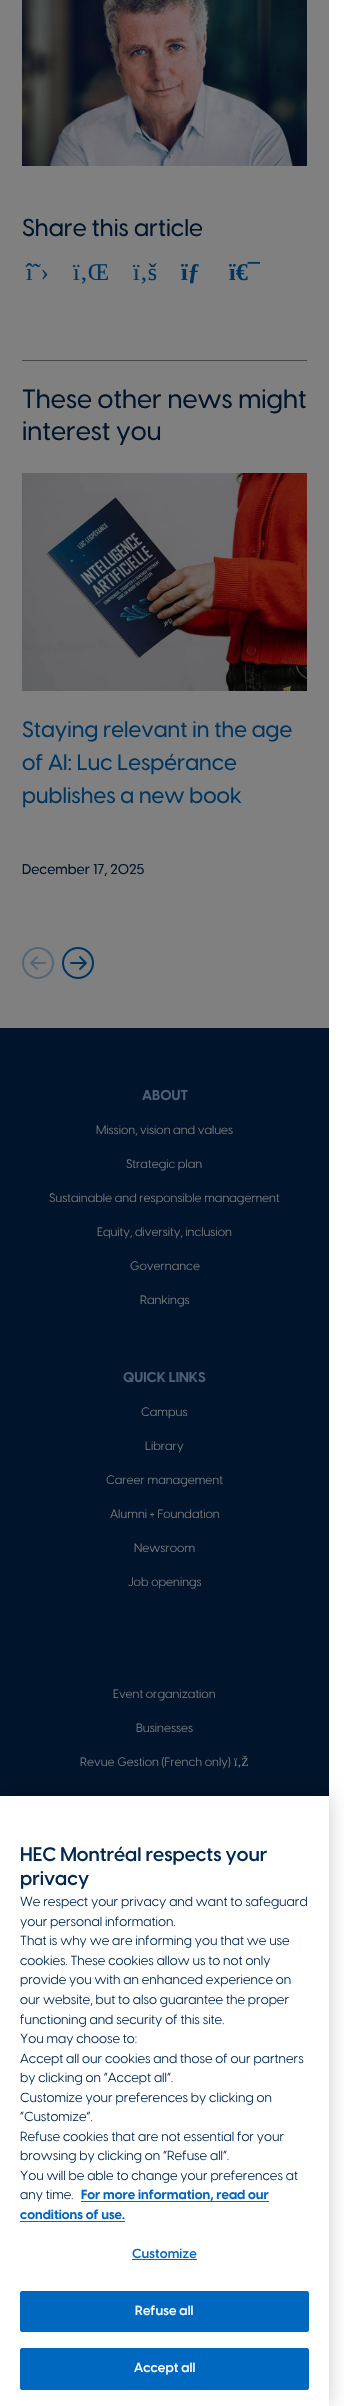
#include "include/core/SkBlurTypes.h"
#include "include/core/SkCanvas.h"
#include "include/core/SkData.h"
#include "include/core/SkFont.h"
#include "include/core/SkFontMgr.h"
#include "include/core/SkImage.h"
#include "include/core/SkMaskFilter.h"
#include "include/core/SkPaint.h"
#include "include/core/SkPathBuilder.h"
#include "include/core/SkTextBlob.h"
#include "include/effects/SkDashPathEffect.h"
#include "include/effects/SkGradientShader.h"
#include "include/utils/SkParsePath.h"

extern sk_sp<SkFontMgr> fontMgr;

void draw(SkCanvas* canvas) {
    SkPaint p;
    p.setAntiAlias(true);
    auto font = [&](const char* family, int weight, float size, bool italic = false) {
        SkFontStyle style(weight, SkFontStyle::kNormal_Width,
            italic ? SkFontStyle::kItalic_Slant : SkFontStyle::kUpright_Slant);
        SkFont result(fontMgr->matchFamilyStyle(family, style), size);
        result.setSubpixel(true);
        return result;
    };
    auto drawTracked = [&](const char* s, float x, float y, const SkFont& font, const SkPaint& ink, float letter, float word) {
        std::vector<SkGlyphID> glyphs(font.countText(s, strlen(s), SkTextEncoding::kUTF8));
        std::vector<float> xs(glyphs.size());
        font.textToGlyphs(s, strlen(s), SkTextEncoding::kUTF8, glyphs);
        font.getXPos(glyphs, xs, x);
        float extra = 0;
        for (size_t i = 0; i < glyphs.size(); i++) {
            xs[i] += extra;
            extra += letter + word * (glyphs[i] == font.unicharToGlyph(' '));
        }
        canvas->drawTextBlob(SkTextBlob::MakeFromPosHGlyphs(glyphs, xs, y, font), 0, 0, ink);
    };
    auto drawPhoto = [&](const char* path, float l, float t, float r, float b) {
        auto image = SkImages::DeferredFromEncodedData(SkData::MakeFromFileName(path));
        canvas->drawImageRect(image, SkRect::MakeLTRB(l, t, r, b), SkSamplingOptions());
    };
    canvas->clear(0xFFFFFFFF);
    p.setColor(0xFF808080);
    canvas->drawRect(SkRect::MakeLTRB(0, 0, 329, 1028), p);
    drawPhoto("media/1.png", 22, 0, 307, 166);
    auto font1 = font("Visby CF", 500, 24);
    p.setColor(0xFF00142B);
    canvas->drawString("Share this article", 22, 236, font1, p);
    auto font2 = font("Liberation Serif", 400, 24);
    p.setColor(0xFF003560);
    {
        const struct { const char* s; float x, y; } items[] = {
            {"î˜›", 26, 280},
            {"ï‚Œ", 73, 280},
            {"ï‚š", 133, 280},
        };
        for (auto [s, x, y] : items) {
            canvas->drawString(s, x, y, font2, p);
        }
    }
    auto font3 = font("Liberation Serif", 700, 24);
    canvas->drawString("ïƒ", 181, 280, font3, p);
    canvas->drawString("ï€¯", 229, 280, font3, p);
    p.setColor(0xFF444647);
    canvas->drawRect(SkRect::MakeLTRB(22, 360, 307, 361), p);
    auto font4 = font("Visby CF", 500, 26);
    p.setColor(0xFF00142B);
    canvas->drawString("These other news might", 22, 408, font4, p);
    canvas->drawString("interest you", 22, 440, font4, p);
    drawPhoto("media/2.png", 22, 473, 307, 691);
    auto font5 = font("Visby CF", 500, 22);
    p.setColor(0xFF003560);
    {
        const struct { const char* s; float x, y; } items[] = {
            {"Staying relevant in the age", 22, 737},
            {"of AI: Luc Lespérance", 22, 770},
            {"publishes a new book", 22, 803},
        };
        for (auto [s, x, y] : items) {
            canvas->drawString(s, x, y, font5, p);
        }
    }
    auto font6 = font("Visby CF", 500, 14);
    p.setColor(0xFF00142B);
    canvas->drawString("December 17, 2025", 22, 874, font6, p);
    drawPhoto("media/3.png", 22, 947, 54, 979);
    drawPhoto("media/4.png", 62, 947, 94, 979);
    canvas->drawRect(SkRect::MakeLTRB(0, 1028, 329, 1796), p);
    auto font7 = font("Visby CF", 700, 14);
    p.setColor(0xFF496175);
    canvas->drawString("ABOUT", 142, 1100, font7, p);
    auto font8 = font("Visby CF", 400, 12);
    p.setColor(0xFF808080);
    {
        const struct { const char* s; float x, y; } items[] = {
            {"Mission, vision and values", 96, 1134},
            {"Strategic plan", 126, 1168},
            {"Sustainable and responsible management", 49, 1202},
            {"Equity, diversity, inclusion", 97, 1236},
            {"Governance", 130, 1270},
            {"Rankings", 140, 1304},
        };
        for (auto [s, x, y] : items) {
            canvas->drawString(s, x, y, font8, p);
        }
    }
    p.setColor(0xFF496175);
    canvas->drawString("QUICK LINKS", 123, 1382, font7, p);
    p.setColor(0xFF808080);
    {
        const struct { const char* s; float x, y; } items[] = {
            {"Campus", 141, 1416},
            {"Library", 145, 1450},
            {"Career management", 106, 1484},
            {"Alumni + Foundation", 110, 1518},
            {"Newsroom", 134, 1552},
            {"Job openings", 128, 1586},
            {"Event organization", 113, 1698},
            {"Businesses", 136, 1732},
            {"Revue Gestion (French only)", 80, 1766},
        };
        for (auto [s, x, y] : items) {
            canvas->drawString(s, x, y, font8, p);
        }
    }
    auto font9 = font("Liberation Serif", 400, 12);
    canvas->drawString("ï‚Ž", 234, 1766, font9, p);
    p.setColor(0x33000000);
    p.setMaskFilter(SkMaskFilter::MakeBlur(kNormal_SkBlurStyle, 9));
    canvas->drawRect(SkRect::MakeLTRB(0, 1796, 329, 2406), p);
    p.setMaskFilter(nullptr);
    p.setColor(0xFFFFFFFF);
    canvas->drawRect(SkRect::MakeLTRB(0, 1796, 329, 2406), p);
    auto font10 = font("Visby CF", 600, 19.25f);
    p.setColor(0xFF002855);
    canvas->drawString("HEC Montréal respects your", 20, 1861, font10, p);
    canvas->drawString("privacy", 20, 1885, font10, p);
    auto font11 = font("Visby CF", 400, 13);
    {
        const struct { const char* s; float x, y; } items[] = {
            {"We respect your privacy and want to safeguard", 20, 1906},
            {"your personal information.", 20, 1926},
            {"That is why we are informing you that we use", 20, 1945},
            {"cookies. These cookies allow us to not only", 20, 1965},
            {"provide you with an enhanced experience on", 20, 1984},
            {"our website, but to also guarantee the proper", 20, 2004},
            {"functioning and security of this site.", 20, 2024},
            {"You may choose to:", 20, 2043},
            {"Accept all our cookies and those of our partners", 20, 2063},
            {"by clicking on “Accept all”.", 20, 2082},
            {"Customize your preferences by clicking on", 20, 2102},
            {"“Customize”.", 20, 2121},
            {"Refuse cookies that are not essential for your", 20, 2141},
            {"browsing by clicking on “Refuse all”.", 20, 2160},
            {"You will be able to change your preferences at", 20, 2180},
            {"any time.", 20, 2199},
        };
        for (auto [s, x, y] : items) {
            canvas->drawString(s, x, y, font11, p);
        }
    }
    auto font12 = font("Visby CF", 700, 13);
    p.setColor(0xFF0069BF);
    canvas->drawString("For more information, read our", 81, 2199, font12, p);
    canvas->drawRect(SkRect::MakeLTRB(81, 2201, 269, 2202), p);
    canvas->drawString("conditions of use.", 20, 2219, font12, p);
    canvas->drawRect(SkRect::MakeLTRB(20, 2221, 125, 2222), p);
    auto font13 = font("Visby CF", 600, 13);
    drawTracked("Customize", 132, 2258, font13, p, 0.1f, 0);
    canvas->drawRect(SkRect::MakeLTRB(132, 2259, 197, 2260), p);
    canvas->drawRoundRect(SkRect::MakeLTRB(20.5f, 2291.5f, 308.5f, 2331.5f), 1.5f, 1.5f, p);
    p.setStyle(SkPaint::kStroke_Style);
    p.setStrokeWidth(1);
    canvas->drawRoundRect(SkRect::MakeLTRB(20.5f, 2291.5f, 308.5f, 2331.5f), 1.5f, 1.5f, p);
    p.setStyle(SkPaint::kFill_Style);
    p.setColor(0xFFFFFFFF);
    drawTracked("Refuse all", 135, 2315, font13, p, 0.1f, 0);
    p.setColor(0xFF0069BF);
    canvas->drawRoundRect(SkRect::MakeLTRB(20.5f, 2348.5f, 308.5f, 2389.5f), 1.5f, 1.5f, p);
    p.setStyle(SkPaint::kStroke_Style);
    canvas->drawRoundRect(SkRect::MakeLTRB(20.5f, 2348.5f, 308.5f, 2389.5f), 1.5f, 1.5f, p);
    p.setStyle(SkPaint::kFill_Style);
    p.setColor(0xFFFFFFFF);
    drawTracked("Accept all", 134, 2372, font13, p, 0.1f, 0);
}
